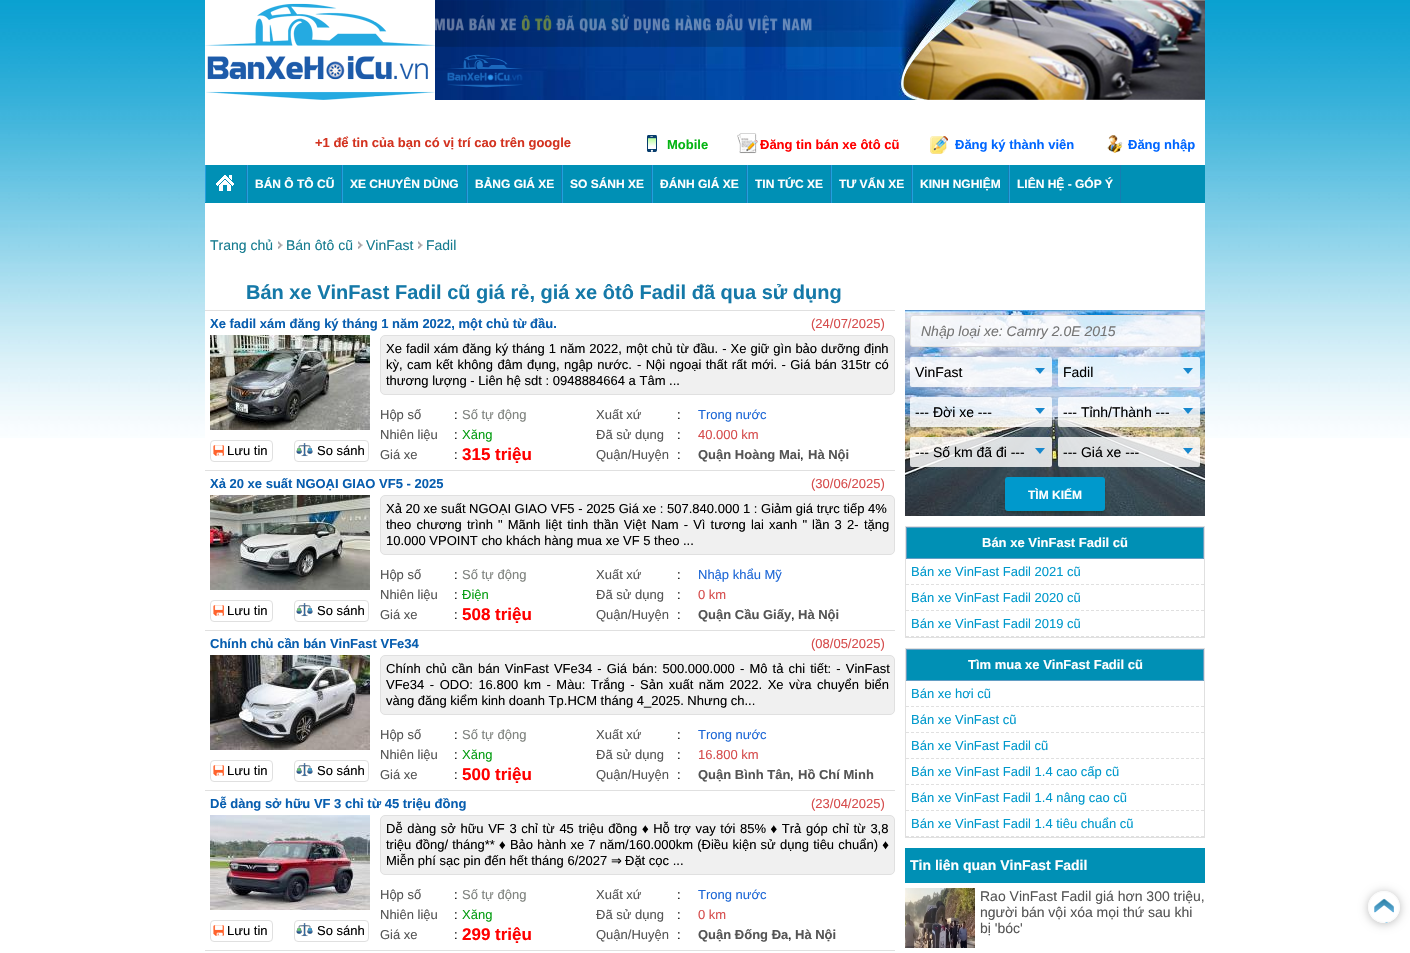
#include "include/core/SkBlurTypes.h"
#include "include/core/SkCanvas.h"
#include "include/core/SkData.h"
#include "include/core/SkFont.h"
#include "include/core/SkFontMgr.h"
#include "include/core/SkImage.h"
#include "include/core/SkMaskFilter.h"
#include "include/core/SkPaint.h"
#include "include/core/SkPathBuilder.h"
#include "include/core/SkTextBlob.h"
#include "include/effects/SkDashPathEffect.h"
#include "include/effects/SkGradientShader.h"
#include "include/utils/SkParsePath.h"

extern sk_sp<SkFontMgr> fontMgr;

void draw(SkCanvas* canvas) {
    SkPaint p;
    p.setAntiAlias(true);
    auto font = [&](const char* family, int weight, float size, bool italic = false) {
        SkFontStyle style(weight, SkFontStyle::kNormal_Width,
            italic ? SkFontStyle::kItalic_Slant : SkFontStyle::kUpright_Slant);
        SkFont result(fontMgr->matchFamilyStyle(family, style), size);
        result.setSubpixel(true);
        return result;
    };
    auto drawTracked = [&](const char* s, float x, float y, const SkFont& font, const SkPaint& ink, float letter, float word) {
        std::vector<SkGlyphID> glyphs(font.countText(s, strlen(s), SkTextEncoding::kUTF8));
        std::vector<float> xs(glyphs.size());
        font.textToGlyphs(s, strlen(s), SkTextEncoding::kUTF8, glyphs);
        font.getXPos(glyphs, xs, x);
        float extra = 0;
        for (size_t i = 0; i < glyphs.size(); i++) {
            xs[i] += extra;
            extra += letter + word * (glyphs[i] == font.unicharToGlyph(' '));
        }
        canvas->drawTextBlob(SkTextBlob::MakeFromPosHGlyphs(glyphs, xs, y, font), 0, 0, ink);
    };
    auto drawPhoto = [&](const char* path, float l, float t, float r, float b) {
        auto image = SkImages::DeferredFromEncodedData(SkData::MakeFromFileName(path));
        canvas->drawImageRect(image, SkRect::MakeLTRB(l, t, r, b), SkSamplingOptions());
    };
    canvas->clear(0xFFFFFFFF);
    drawPhoto("media/1.png", 0, 0, 1410, 438);
    p.setColor(0xFFFFFFFF);
    canvas->drawRect(SkRect::MakeLTRB(205, 0, 1205, 438), p);
    drawPhoto("media/2.png", 205, 3, 435, 100);
    drawPhoto("media/3.png", 435, 0, 1205, 100);
    auto font1 = font("Liberation Sans", 700, 13);
    p.setColor(0xFFD33320);
    canvas->drawString("+1 để tin của bạn có vị trí cao trên google", 315, 147, font1, p);
    drawPhoto("media/4.png", 647, 135, 657, 152);
    p.setColor(0xFF05B413);
    canvas->drawString("Mobile", 667, 149, font1, p);
    drawPhoto("media/5.png", 737, 133, 758, 154);
    p.setColor(0xFFFF0000);
    canvas->drawString("Đăng tin bán xe ôtô cũ", 760, 149, font1, p);
    drawPhoto("media/6.png", 930, 136, 948, 154);
    p.setColor(0xFF0066FF);
    canvas->drawString("Đăng ký thành viên", 955, 149, font1, p);
    drawPhoto("media/7.png", 1107, 135, 1124, 153);
    canvas->drawString("Đăng nhập", 1128, 149, font1, p);
    {
        const struct { float l, t, r, b; SkColor color; } items[] = {
            {205, 165, 1205, 203, 0xFF0090B5},
            {246, 165, 247, 202, 0xFF177DB1},
            {205, 165, 206, 202, 0xFF249FDE},
        };
        for (auto [l, t, r, b, color] : items) {
            p.setColor(color);
            canvas->drawRect(SkRect::MakeLTRB(l, t, r, b), p);
        }
    }
    drawPhoto("media/8.png", 216, 175, 234, 191);
    p.setColor(0xFF177DB1);
    canvas->drawRect(SkRect::MakeLTRB(341, 165, 342, 203), p);
    p.setColor(0xFF249FDE);
    canvas->drawRect(SkRect::MakeLTRB(247, 165, 248, 203), p);
    auto font2 = font("Liberation Sans", 700, 12);
    p.setColor(0xFFFFFFFF);
    canvas->drawString("BÁN Ô TÔ CŨ", 255, 188, font2, p);
    p.setColor(0xFF177DB1);
    canvas->drawRect(SkRect::MakeLTRB(466, 165, 467, 203), p);
    p.setColor(0xFF249FDE);
    canvas->drawRect(SkRect::MakeLTRB(342, 165, 343, 203), p);
    p.setColor(0xFFFFFFFF);
    canvas->drawString("XE CHUYÊN DÙNG", 350, 188, font2, p);
    p.setColor(0xFF177DB1);
    canvas->drawRect(SkRect::MakeLTRB(561, 165, 562, 203), p);
    p.setColor(0xFF249FDE);
    canvas->drawRect(SkRect::MakeLTRB(467, 165, 468, 203), p);
    p.setColor(0xFFFFFFFF);
    canvas->drawString("BẢNG GIÁ XE", 475, 188, font2, p);
    p.setColor(0xFF177DB1);
    canvas->drawRect(SkRect::MakeLTRB(651, 165, 652, 203), p);
    p.setColor(0xFF249FDE);
    canvas->drawRect(SkRect::MakeLTRB(562, 165, 563, 203), p);
    p.setColor(0xFFFFFFFF);
    canvas->drawString("SO SÁNH XE", 570, 188, font2, p);
    p.setColor(0xFF177DB1);
    canvas->drawRect(SkRect::MakeLTRB(746, 165, 747, 203), p);
    p.setColor(0xFF249FDE);
    canvas->drawRect(SkRect::MakeLTRB(652, 165, 653, 203), p);
    p.setColor(0xFFFFFFFF);
    canvas->drawString("ĐÁNH GIÁ XE", 660, 188, font2, p);
    p.setColor(0xFF177DB1);
    canvas->drawRect(SkRect::MakeLTRB(830, 165, 831, 203), p);
    p.setColor(0xFF249FDE);
    canvas->drawRect(SkRect::MakeLTRB(747, 165, 748, 203), p);
    p.setColor(0xFFFFFFFF);
    canvas->drawString("TIN TỨC XE", 755, 188, font2, p);
    p.setColor(0xFF177DB1);
    canvas->drawRect(SkRect::MakeLTRB(911, 165, 912, 203), p);
    p.setColor(0xFF249FDE);
    canvas->drawRect(SkRect::MakeLTRB(831, 165, 832, 203), p);
    p.setColor(0xFFFFFFFF);
    canvas->drawString("TƯ VẤN XE", 839, 188, font2, p);
    p.setColor(0xFF177DB1);
    canvas->drawRect(SkRect::MakeLTRB(1008, 165, 1009, 203), p);
    p.setColor(0xFF249FDE);
    canvas->drawRect(SkRect::MakeLTRB(912, 165, 913, 203), p);
    p.setColor(0xFFFFFFFF);
    canvas->drawString("KINH NGHIỆM", 920, 188, font2, p);
    p.setColor(0xFF177DB1);
    canvas->drawRect(SkRect::MakeLTRB(1120, 165, 1121, 203), p);
    p.setColor(0xFF249FDE);
    canvas->drawRect(SkRect::MakeLTRB(1009, 165, 1010, 203), p);
    p.setColor(0xFFFFFFFF);
    canvas->drawString("LIÊN HỆ - GÓP Ý", 1017, 188, font2, p);
    auto font3 = font("Liberation Sans", 400, 14);
    p.setColor(0xFF157B8F);
    canvas->drawString("Trang chủ", 210, 250, font3, p);
    drawPhoto("media/9.png", 278, 241, 283, 249);
    canvas->drawString("Bán ôtô cũ", 286, 250, font3, p);
    drawPhoto("media/9.png", 358, 241, 363, 249);
    canvas->drawString("VinFast", 366, 250, font3, p);
    drawPhoto("media/9.png", 418, 241, 423, 249);
    canvas->drawString("Fadil", 426, 250, font3, p);
    auto font4 = font("Liberation Sans", 700, 20);
    p.setColor(0xFF1579A8);
    canvas->drawString("Bán xe VinFast Fadil cũ giá rẻ, giá xe ôtô Fadil đã qua sử dụng", 246, 299, font4, p);
    p.setColor(0xFFE0E0E0);
    canvas->drawRect(SkRect::MakeLTRB(205, 310, 895, 311), p);
    canvas->drawRect(SkRect::MakeLTRB(205, 470, 895, 471), p);
    p.setColor(0xFF085EAF);
    canvas->drawString("Xe fadil xám đăng ký tháng 1 năm 2022, một chủ từ đầu.", 210, 328, font1, p);
    auto font5 = font("Liberation Sans", 400, 13);
    p.setColor(0xFFD64D4D);
    canvas->drawString("(24/07/2025)", 811, 328, font5, p);
    drawPhoto("media/10.png", 210, 335, 370, 430);
    p.setColor(0xFFF0F0F0);
    canvas->drawRoundRect(SkRect::MakeLTRB(380.5f, 335.5f, 894.5f, 394.5f), 4.5f, 4.5f, p);
    p.setStyle(SkPaint::kStroke_Style);
    p.setStrokeWidth(1);
    p.setColor(0xFFE0E0E0);
    canvas->drawRoundRect(SkRect::MakeLTRB(380.5f, 335.5f, 894.5f, 394.5f), 4.5f, 4.5f, p);
    p.setStyle(SkPaint::kFill_Style);
    p.setColor(0xFF000000);
    drawTracked("Xe fadil xám đăng ký tháng 1 năm 2022, một chủ từ đầu. - Xe giữ gìn bảo dưỡng định", 386, 353, font5, p, 0, 0.4f);
    {
        const struct { const char* s; float x, y; } items[] = {
            {"kỳ, cam kết không đâm đụng, ngập nước.", 386, 369},
            {"- Nội ngoại thất rất mới. - Giá", 637, 369},
            {"bán 315tr có", 815, 369},
        };
        for (auto [s, x, y] : items) {
            drawTracked(s, x, y, font5, p, 0, 0.75f);
        }
    }
    canvas->drawString("thương lượng - Liên hệ sdt : 0948884664 a Tâm ...", 386, 385, font5, p);
    p.setColor(0xFF555555);
    canvas->drawString("Hộp số", 380, 419, font5, p);
    p.setColor(0xFF000000);
    canvas->drawString(":", 454, 419, font5, p);
    p.setColor(0xFF7E827E);
    canvas->drawString("Số tự động", 462, 419, font5, p);
    p.setColor(0xFF555555);
    canvas->drawString("Xuất xứ", 596, 419, font5, p);
    p.setColor(0xFF000000);
    canvas->drawString(":", 677, 419, font5, p);
    p.setColor(0xFF1D67D6);
    canvas->drawString("Trong nước", 698, 419, font5, p);
    p.setColor(0xFF555555);
    canvas->drawString("Nhiên liệu", 380, 439, font5, p);
    p.setColor(0xFF000000);
    canvas->drawString(":", 454, 439, font5, p);
    p.setColor(0xFF079E13);
    canvas->drawString("Xăng", 462, 439, font5, p);
    p.setColor(0xFF555555);
    canvas->drawString("Đã sử dụng", 596, 439, font5, p);
    p.setColor(0xFF000000);
    canvas->drawString(":", 677, 439, font5, p);
    p.setColor(0xFFD64D4D);
    canvas->drawString("40.000 km", 698, 439, font5, p);
    p.setColor(0xFF555555);
    canvas->drawString("Giá xe", 380, 459, font5, p);
    p.setColor(0xFF000000);
    canvas->drawString(":", 454, 459, font5, p);
    auto font6 = font("Liberation Sans", 700, 17);
    p.setColor(0xFFFF0000);
    canvas->drawString("315 triệu", 462, 460, font6, p);
    p.setColor(0xFF555555);
    canvas->drawString("Quận/Huyện", 596, 459, font5, p);
    p.setColor(0xFF000000);
    canvas->drawString(":", 677, 459, font5, p);
    p.setColor(0xFF555555);
    canvas->drawString("Quận Hoàng Mai", 698, 459, font1, p);
    p.setColor(0xFF000000);
    canvas->drawString(",", 800, 459, font5, p);
    p.setColor(0xFF555555);
    canvas->drawString("Hà Nội", 808, 459, font1, p);
    drawPhoto("media/11.png", 213, 445, 224, 456);
    p.setStyle(SkPaint::kStroke_Style);
    p.setColor(0xFFE0E0E0);
    canvas->drawRoundRect(SkRect::MakeLTRB(210.5f, 440.5f, 272.5f, 461.5f), 3.5f, 3.5f, p);
    p.setStyle(SkPaint::kFill_Style);
    p.setColor(0xFF000000);
    canvas->drawString("Lưu tin", 227, 455, font5, p);
    drawPhoto("media/12.png", 296, 443, 313, 457);
    p.setStyle(SkPaint::kStroke_Style);
    p.setColor(0xFFE0E0E0);
    canvas->drawRoundRect(SkRect::MakeLTRB(294.5f, 440.5f, 368.5f, 461.5f), 3.5f, 3.5f, p);
    p.setStyle(SkPaint::kFill_Style);
    p.setColor(0xFF000000);
    canvas->drawString("So sánh", 317, 455, font5, p);
    p.setColor(0xFFE0E0E0);
    canvas->drawRect(SkRect::MakeLTRB(205, 630, 895, 631), p);
    p.setColor(0xFF085EAF);
    canvas->drawString("Xả 20 xe suất NGOẠI GIAO VF5 - 2025", 210, 488, font1, p);
    p.setColor(0xFFD64D4D);
    canvas->drawString("(30/06/2025)", 811, 488, font5, p);
    drawPhoto("media/13.png", 210, 495, 370, 590);
    p.setColor(0xFFF0F0F0);
    canvas->drawRoundRect(SkRect::MakeLTRB(380.5f, 495.5f, 894.5f, 554.5f), 4.5f, 4.5f, p);
    p.setStyle(SkPaint::kStroke_Style);
    p.setColor(0xFFE0E0E0);
    canvas->drawRoundRect(SkRect::MakeLTRB(380.5f, 495.5f, 894.5f, 554.5f), 4.5f, 4.5f, p);
    p.setStyle(SkPaint::kFill_Style);
    p.setColor(0xFF000000);
    canvas->drawString("Xả 20 xe suất NGOẠI GIAO VF5 - 2025 Giá xe : 507.840.000 1 : Giảm giá trực tiếp 4%", 386, 513, font5, p);
    drawTracked("theo chương trình \" Mãnh liệt tinh thần Việt Nam - Vì tương lai xanh \" lần 3", 386, 529, font5, p, 0, 1.5f);
    {
        const struct { const char* s; float x, y; } items[] = {
            {"2-", 847, 529},
            {"tặng", 864, 529},
            {"10.000 VPOINT cho khách hàng mua xe VF 5 theo ...", 386, 545},
        };
        for (auto [s, x, y] : items) {
            canvas->drawString(s, x, y, font5, p);
        }
    }
    p.setColor(0xFF555555);
    canvas->drawString("Hộp số", 380, 579, font5, p);
    p.setColor(0xFF000000);
    canvas->drawString(":", 454, 579, font5, p);
    p.setColor(0xFF7E827E);
    canvas->drawString("Số tự động", 462, 579, font5, p);
    p.setColor(0xFF555555);
    canvas->drawString("Xuất xứ", 596, 579, font5, p);
    p.setColor(0xFF000000);
    canvas->drawString(":", 677, 579, font5, p);
    p.setColor(0xFF1D67D6);
    canvas->drawString("Nhập khẩu Mỹ", 698, 579, font5, p);
    p.setColor(0xFF555555);
    canvas->drawString("Nhiên liệu", 380, 599, font5, p);
    p.setColor(0xFF000000);
    canvas->drawString(":", 454, 599, font5, p);
    p.setColor(0xFF079E13);
    canvas->drawString("Điện", 462, 599, font5, p);
    p.setColor(0xFF555555);
    canvas->drawString("Đã sử dụng", 596, 599, font5, p);
    p.setColor(0xFF000000);
    canvas->drawString(":", 677, 599, font5, p);
    p.setColor(0xFFD64D4D);
    canvas->drawString("0 km", 698, 599, font5, p);
    p.setColor(0xFF555555);
    canvas->drawString("Giá xe", 380, 619, font5, p);
    p.setColor(0xFF000000);
    canvas->drawString(":", 454, 619, font5, p);
    p.setColor(0xFFFF0000);
    canvas->drawString("508 triệu", 462, 620, font6, p);
    p.setColor(0xFF555555);
    canvas->drawString("Quận/Huyện", 596, 619, font5, p);
    p.setColor(0xFF000000);
    canvas->drawString(":", 677, 619, font5, p);
    p.setColor(0xFF555555);
    canvas->drawString("Quận Cầu Giấy", 698, 619, font1, p);
    p.setColor(0xFF000000);
    canvas->drawString(",", 791, 619, font5, p);
    p.setColor(0xFF555555);
    canvas->drawString("Hà Nội", 798, 619, font1, p);
    drawPhoto("media/11.png", 213, 605, 224, 616);
    p.setStyle(SkPaint::kStroke_Style);
    p.setColor(0xFFE0E0E0);
    canvas->drawRoundRect(SkRect::MakeLTRB(210.5f, 600.5f, 272.5f, 621.5f), 3.5f, 3.5f, p);
    p.setStyle(SkPaint::kFill_Style);
    p.setColor(0xFF000000);
    canvas->drawString("Lưu tin", 227, 615, font5, p);
    drawPhoto("media/12.png", 296, 603, 313, 617);
    p.setStyle(SkPaint::kStroke_Style);
    p.setColor(0xFFE0E0E0);
    canvas->drawRoundRect(SkRect::MakeLTRB(294.5f, 600.5f, 368.5f, 621.5f), 3.5f, 3.5f, p);
    p.setStyle(SkPaint::kFill_Style);
    p.setColor(0xFF000000);
    canvas->drawString("So sánh", 317, 615, font5, p);
    p.setColor(0xFFE0E0E0);
    canvas->drawRect(SkRect::MakeLTRB(205, 790, 895, 791), p);
    p.setColor(0xFF085EAF);
    canvas->drawString("Chính chủ cần bán VinFast VFe34", 210, 648, font1, p);
    p.setColor(0xFFD64D4D);
    canvas->drawString("(08/05/2025)", 811, 648, font5, p);
    drawPhoto("media/14.png", 210, 655, 370, 750);
    p.setColor(0xFFF0F0F0);
    canvas->drawRoundRect(SkRect::MakeLTRB(380.5f, 655.5f, 894.5f, 714.5f), 4.5f, 4.5f, p);
    p.setStyle(SkPaint::kStroke_Style);
    p.setColor(0xFFE0E0E0);
    canvas->drawRoundRect(SkRect::MakeLTRB(380.5f, 655.5f, 894.5f, 714.5f), 4.5f, 4.5f, p);
    p.setStyle(SkPaint::kFill_Style);
    p.setColor(0xFF000000);
    drawTracked("Chính chủ cần bán VinFast VFe34 - Giá bán: 500.000.000 - Mô tả chi tiết: - VinFast", 386, 673, font5, p, 0, 1.5f);
    drawTracked("VFe34 - ODO: 16.800 km - Màu: Trắng - Sản xuất năm 2022. Xe vừa chuyển biển", 386, 689, font5, p, 0, 1.9f);
    canvas->drawString("vàng đăng kiểm kinh doanh Tp.HCM tháng 4_2025. Nhưng ch...", 386, 705, font5, p);
    p.setColor(0xFF555555);
    canvas->drawString("Hộp số", 380, 739, font5, p);
    p.setColor(0xFF000000);
    canvas->drawString(":", 454, 739, font5, p);
    p.setColor(0xFF7E827E);
    canvas->drawString("Số tự động", 462, 739, font5, p);
    p.setColor(0xFF555555);
    canvas->drawString("Xuất xứ", 596, 739, font5, p);
    p.setColor(0xFF000000);
    canvas->drawString(":", 677, 739, font5, p);
    p.setColor(0xFF1D67D6);
    canvas->drawString("Trong nước", 698, 739, font5, p);
    p.setColor(0xFF555555);
    canvas->drawString("Nhiên liệu", 380, 759, font5, p);
    p.setColor(0xFF000000);
    canvas->drawString(":", 454, 759, font5, p);
    p.setColor(0xFF079E13);
    canvas->drawString("Xăng", 462, 759, font5, p);
    p.setColor(0xFF555555);
    canvas->drawString("Đã sử dụng", 596, 759, font5, p);
    p.setColor(0xFF000000);
    canvas->drawString(":", 677, 759, font5, p);
    p.setColor(0xFFD64D4D);
    canvas->drawString("16.800 km", 698, 759, font5, p);
    p.setColor(0xFF555555);
    canvas->drawString("Giá xe", 380, 779, font5, p);
    p.setColor(0xFF000000);
    canvas->drawString(":", 454, 779, font5, p);
    p.setColor(0xFFFF0000);
    canvas->drawString("500 triệu", 462, 780, font6, p);
    p.setColor(0xFF555555);
    canvas->drawString("Quận/Huyện", 596, 779, font5, p);
    p.setColor(0xFF000000);
    canvas->drawString(":", 677, 779, font5, p);
    p.setColor(0xFF555555);
    canvas->drawString("Quận Bình Tân", 698, 779, font1, p);
    p.setColor(0xFF000000);
    canvas->drawString(",", 790, 779, font5, p);
    p.setColor(0xFF555555);
    canvas->drawString("Hồ Chí Minh", 798, 779, font1, p);
    drawPhoto("media/11.png", 213, 765, 224, 776);
    p.setStyle(SkPaint::kStroke_Style);
    p.setColor(0xFFE0E0E0);
    canvas->drawRoundRect(SkRect::MakeLTRB(210.5f, 760.5f, 272.5f, 781.5f), 3.5f, 3.5f, p);
    p.setStyle(SkPaint::kFill_Style);
    p.setColor(0xFF000000);
    canvas->drawString("Lưu tin", 227, 775, font5, p);
    drawPhoto("media/12.png", 296, 763, 313, 777);
    p.setStyle(SkPaint::kStroke_Style);
    p.setColor(0xFFE0E0E0);
    canvas->drawRoundRect(SkRect::MakeLTRB(294.5f, 760.5f, 368.5f, 781.5f), 3.5f, 3.5f, p);
    p.setStyle(SkPaint::kFill_Style);
    p.setColor(0xFF000000);
    canvas->drawString("So sánh", 317, 775, font5, p);
    p.setColor(0xFFE0E0E0);
    canvas->drawRect(SkRect::MakeLTRB(205, 950, 895, 951), p);
    p.setColor(0xFF085EAF);
    canvas->drawString("Dễ dàng sở hữu VF 3 chỉ từ 45 triệu đồng", 210, 808, font1, p);
    p.setColor(0xFFD64D4D);
    canvas->drawString("(23/04/2025)", 811, 808, font5, p);
    drawPhoto("media/15.png", 210, 815, 370, 910);
    p.setColor(0xFFF0F0F0);
    canvas->drawRoundRect(SkRect::MakeLTRB(380.5f, 815.5f, 894.5f, 874.5f), 4.5f, 4.5f, p);
    p.setStyle(SkPaint::kStroke_Style);
    p.setColor(0xFFE0E0E0);
    canvas->drawRoundRect(SkRect::MakeLTRB(380.5f, 815.5f, 894.5f, 874.5f), 4.5f, 4.5f, p);
    p.setStyle(SkPaint::kFill_Style);
    p.setColor(0xFF000000);
    drawTracked("Dễ dàng sở hữu VF 3 chỉ từ 45 triệu đồng ♦ Hỗ trợ vay tới 85% ♦ Trả góp chỉ từ 3,8", 386, 833, font5, p, 0, 1);
    drawTracked("triệu đồng/ tháng** ♦ Bảo hành xe 7 năm/160.000km (Điều kiện sử dụng tiêu chuẩn) ♦", 386, 849, font5, p, 0, 0.6f);
    canvas->drawString("Miễn phí sạc pin đến hết tháng 6/2027", 386, 865, font5, p);
    auto font7 = font("DejaVu Sans", 400, 13);
    canvas->drawString("⇒", 611, 865, font7, p);
    canvas->drawString("Đặt cọc ...", 625, 865, font5, p);
    p.setColor(0xFF555555);
    canvas->drawString("Hộp số", 380, 899, font5, p);
    p.setColor(0xFF000000);
    canvas->drawString(":", 454, 899, font5, p);
    p.setColor(0xFF7E827E);
    canvas->drawString("Số tự động", 462, 899, font5, p);
    p.setColor(0xFF555555);
    canvas->drawString("Xuất xứ", 596, 899, font5, p);
    p.setColor(0xFF000000);
    canvas->drawString(":", 677, 899, font5, p);
    p.setColor(0xFF1D67D6);
    canvas->drawString("Trong nước", 698, 899, font5, p);
    p.setColor(0xFF555555);
    canvas->drawString("Nhiên liệu", 380, 919, font5, p);
    p.setColor(0xFF000000);
    canvas->drawString(":", 454, 919, font5, p);
    p.setColor(0xFF079E13);
    canvas->drawString("Xăng", 462, 919, font5, p);
    p.setColor(0xFF555555);
    canvas->drawString("Đã sử dụng", 596, 919, font5, p);
    p.setColor(0xFF000000);
    canvas->drawString(":", 677, 919, font5, p);
    p.setColor(0xFFD64D4D);
    canvas->drawString("0 km", 698, 919, font5, p);
    p.setColor(0xFF555555);
    canvas->drawString("Giá xe", 380, 939, font5, p);
    p.setColor(0xFF000000);
    canvas->drawString(":", 454, 939, font5, p);
    p.setColor(0xFFFF0000);
    canvas->drawString("299 triệu", 462, 940, font6, p);
    p.setColor(0xFF555555);
    canvas->drawString("Quận/Huyện", 596, 939, font5, p);
    p.setColor(0xFF000000);
    canvas->drawString(":", 677, 939, font5, p);
    p.setColor(0xFF555555);
    canvas->drawString("Quận Đống Đa", 698, 939, font1, p);
    p.setColor(0xFF000000);
    canvas->drawString(",", 788, 939, font5, p);
    p.setColor(0xFF555555);
    canvas->drawString("Hà Nội", 795, 939, font1, p);
    drawPhoto("media/11.png", 213, 925, 224, 936);
    p.setStyle(SkPaint::kStroke_Style);
    p.setColor(0xFFE0E0E0);
    canvas->drawRoundRect(SkRect::MakeLTRB(210.5f, 920.5f, 272.5f, 941.5f), 3.5f, 3.5f, p);
    p.setStyle(SkPaint::kFill_Style);
    p.setColor(0xFF000000);
    canvas->drawString("Lưu tin", 227, 935, font5, p);
    drawPhoto("media/12.png", 296, 923, 313, 937);
    p.setStyle(SkPaint::kStroke_Style);
    p.setColor(0xFFE0E0E0);
    canvas->drawRoundRect(SkRect::MakeLTRB(294.5f, 920.5f, 368.5f, 941.5f), 3.5f, 3.5f, p);
    p.setStyle(SkPaint::kFill_Style);
    p.setColor(0xFF000000);
    canvas->drawString("So sánh", 317, 935, font5, p);
    drawPhoto("media/16.png", 905, 310, 1205, 516);
    p.setColor(0xD1FFFFFF);
    canvas->drawRoundRect(SkRect::MakeLTRB(910.5f, 315.5f, 1200.5f, 346.5f), 2.5f, 2.5f, p);
    p.setStyle(SkPaint::kStroke_Style);
    p.setColor(0xFFE0E0E0);
    canvas->drawRoundRect(SkRect::MakeLTRB(910.5f, 315.5f, 1200.5f, 346.5f), 2.5f, 2.5f, p);
    auto font8 = font("Liberation Sans", 400, 14, true);
    p.setStyle(SkPaint::kFill_Style);
    p.setColor(0xFF757575);
    canvas->drawString("Nhập loại xe: Camry 2.0E 2015", 921, 336, font8, p);
    p.setColor(0xD1FFFFFF);
    canvas->drawRoundRect(SkRect::MakeLTRB(910, 357, 1052, 387), 2, 2, p);
    drawPhoto("media/17.png", 1035, 368, 1045, 374);
    p.setColor(0xFF000000);
    canvas->drawString("VinFast", 915, 377, font3, p);
    p.setColor(0xD1FFFFFF);
    canvas->drawRoundRect(SkRect::MakeLTRB(1058, 357, 1200, 387), 2, 2, p);
    drawPhoto("media/18.png", 1183, 368, 1193, 374);
    p.setColor(0xFF000000);
    canvas->drawString("Fadil", 1063, 377, font3, p);
    p.setColor(0xD1FFFFFF);
    canvas->drawRoundRect(SkRect::MakeLTRB(910, 397, 1052, 427), 2, 2, p);
    drawPhoto("media/19.png", 1035, 408, 1045, 414);
    p.setColor(0xFF000000);
    canvas->drawString("--- Đời xe ---", 915, 417, font3, p);
    p.setColor(0xD1FFFFFF);
    canvas->drawRoundRect(SkRect::MakeLTRB(1058, 397, 1200, 427), 2, 2, p);
    drawPhoto("media/20.png", 1183, 408, 1193, 414);
    p.setColor(0xFF000000);
    canvas->drawString("--- Tỉnh/Thành ---", 1063, 417, font3, p);
    p.setColor(0xD1FFFFFF);
    canvas->drawRoundRect(SkRect::MakeLTRB(910, 437, 1052, 467), 2, 2, p);
    drawPhoto("media/21.png", 1035, 448, 1045, 454);
    p.setColor(0xFF000000);
    canvas->drawString("--- Số km đã đi ---", 915, 457, font3, p);
    p.setColor(0xD1FFFFFF);
    canvas->drawRoundRect(SkRect::MakeLTRB(1058, 437, 1200, 467), 2, 2, p);
    drawPhoto("media/22.png", 1183, 448, 1193, 454);
    p.setColor(0xFF000000);
    canvas->drawString("--- Giá xe ---", 1063, 457, font3, p);
    p.setColor(0x4D053316);
    p.setMaskFilter(SkMaskFilter::MakeBlur(kNormal_SkBlurStyle, 1));
    canvas->drawRoundRect(SkRect::MakeLTRB(1005, 479, 1105, 513), 3, 3, p);
    p.setMaskFilter(nullptr);
    p.setColor(0xFF0099CC);
    canvas->drawRoundRect(SkRect::MakeLTRB(1005, 477, 1105, 511), 3, 3, p);
    p.setColor(0xFFFFFFFF);
    canvas->drawString("TÌM KIẾM", 1028, 499, font2, p);
    p.setStyle(SkPaint::kStroke_Style);
    p.setColor(0xFFE0E0E0);
    canvas->drawRect(SkRect::MakeLTRB(905.5f, 526.5f, 1204.5f, 637.5f), p);
    p.setStyle(SkPaint::kFill_Style);
    p.setColor(0xFF0090B5);
    canvas->drawRect(SkRect::MakeLTRB(906.5f, 527.5f, 1203.5f, 558.5f), p);
    p.setStyle(SkPaint::kStroke_Style);
    p.setColor(0xFF639EC4);
    canvas->drawRect(SkRect::MakeLTRB(906.5f, 527.5f, 1203.5f, 558.5f), p);
    p.setStyle(SkPaint::kFill_Style);
    p.setColor(0xFFFFFFFF);
    canvas->drawString("Bán xe VinFast Fadil cũ", 982, 547, font1, p);
    p.setStyle(SkPaint::kStroke_Style);
    p.setColor(0xFFE0E0E0);
    p.setPathEffect(SkDashPathEffect::Make({{3, 2}}, 0));
    canvas->drawPath(SkPathBuilder().moveTo(906, 584.5f).lineTo(1204, 584.5f).detach(), p);
    p.setPathEffect(nullptr);
    p.setStyle(SkPaint::kFill_Style);
    p.setColor(0xFF0099CC);
    canvas->drawString("Bán xe VinFast Fadil 2021 cũ", 911, 576, font5, p);
    p.setStyle(SkPaint::kStroke_Style);
    p.setColor(0xFFE0E0E0);
    p.setPathEffect(SkDashPathEffect::Make({{3, 2}}, 0));
    canvas->drawPath(SkPathBuilder().moveTo(906, 610.5f).lineTo(1204, 610.5f).detach(), p);
    p.setPathEffect(nullptr);
    p.setStyle(SkPaint::kFill_Style);
    p.setColor(0xFF0099CC);
    canvas->drawString("Bán xe VinFast Fadil 2020 cũ", 911, 602, font5, p);
    p.setStyle(SkPaint::kStroke_Style);
    p.setColor(0xFFE0E0E0);
    p.setPathEffect(SkDashPathEffect::Make({{3, 2}}, 0));
    canvas->drawPath(SkPathBuilder().moveTo(906, 636.5f).lineTo(1204, 636.5f).detach(), p);
    p.setPathEffect(nullptr);
    p.setStyle(SkPaint::kFill_Style);
    p.setColor(0xFF0099CC);
    canvas->drawString("Bán xe VinFast Fadil 2019 cũ", 911, 628, font5, p);
    p.setStyle(SkPaint::kStroke_Style);
    p.setColor(0xFFE0E0E0);
    canvas->drawRect(SkRect::MakeLTRB(905.5f, 648.5f, 1204.5f, 837.5f), p);
    p.setStyle(SkPaint::kFill_Style);
    p.setColor(0xFF0090B5);
    canvas->drawRect(SkRect::MakeLTRB(906.5f, 649.5f, 1203.5f, 680.5f), p);
    p.setStyle(SkPaint::kStroke_Style);
    p.setColor(0xFF639EC4);
    canvas->drawRect(SkRect::MakeLTRB(906.5f, 649.5f, 1203.5f, 680.5f), p);
    p.setStyle(SkPaint::kFill_Style);
    p.setColor(0xFFFFFFFF);
    canvas->drawString("Tìm mua xe VinFast Fadil cũ", 968, 669, font1, p);
    p.setStyle(SkPaint::kStroke_Style);
    p.setColor(0xFFE0E0E0);
    p.setPathEffect(SkDashPathEffect::Make({{3, 2}}, 0));
    canvas->drawPath(SkPathBuilder().moveTo(906, 706.5f).lineTo(1204, 706.5f).detach(), p);
    p.setPathEffect(nullptr);
    p.setStyle(SkPaint::kFill_Style);
    p.setColor(0xFF0099CC);
    canvas->drawString("Bán xe hơi cũ", 911, 698, font5, p);
    p.setStyle(SkPaint::kStroke_Style);
    p.setColor(0xFFE0E0E0);
    p.setPathEffect(SkDashPathEffect::Make({{3, 2}}, 0));
    canvas->drawPath(SkPathBuilder().moveTo(906, 732.5f).lineTo(1204, 732.5f).detach(), p);
    p.setPathEffect(nullptr);
    p.setStyle(SkPaint::kFill_Style);
    p.setColor(0xFF0099CC);
    canvas->drawString("Bán xe VinFast cũ", 911, 724, font5, p);
    p.setStyle(SkPaint::kStroke_Style);
    p.setColor(0xFFE0E0E0);
    p.setPathEffect(SkDashPathEffect::Make({{3, 2}}, 0));
    canvas->drawPath(SkPathBuilder().moveTo(906, 758.5f).lineTo(1204, 758.5f).detach(), p);
    p.setPathEffect(nullptr);
    p.setStyle(SkPaint::kFill_Style);
    p.setColor(0xFF0099CC);
    canvas->drawString("Bán xe VinFast Fadil cũ", 911, 750, font5, p);
    p.setStyle(SkPaint::kStroke_Style);
    p.setColor(0xFFE0E0E0);
    p.setPathEffect(SkDashPathEffect::Make({{3, 2}}, 0));
    canvas->drawPath(SkPathBuilder().moveTo(906, 784.5f).lineTo(1204, 784.5f).detach(), p);
    p.setPathEffect(nullptr);
    p.setStyle(SkPaint::kFill_Style);
    p.setColor(0xFF0099CC);
    canvas->drawString("Bán xe VinFast Fadil 1.4 cao cấp cũ", 911, 776, font5, p);
    p.setStyle(SkPaint::kStroke_Style);
    p.setColor(0xFFE0E0E0);
    p.setPathEffect(SkDashPathEffect::Make({{3, 2}}, 0));
    canvas->drawPath(SkPathBuilder().moveTo(906, 810.5f).lineTo(1204, 810.5f).detach(), p);
    p.setPathEffect(nullptr);
    p.setStyle(SkPaint::kFill_Style);
    p.setColor(0xFF0099CC);
    canvas->drawString("Bán xe VinFast Fadil 1.4 nâng cao cũ", 911, 802, font5, p);
    p.setStyle(SkPaint::kStroke_Style);
    p.setColor(0xFFE0E0E0);
    p.setPathEffect(SkDashPathEffect::Make({{3, 2}}, 0));
    canvas->drawPath(SkPathBuilder().moveTo(906, 836.5f).lineTo(1204, 836.5f).detach(), p);
    p.setPathEffect(nullptr);
    p.setStyle(SkPaint::kFill_Style);
    p.setColor(0xFF0099CC);
    canvas->drawString("Bán xe VinFast Fadil 1.4 tiêu chuẩn cũ", 911, 828, font5, p);
    p.setColor(0xFF0090B5);
    canvas->drawRect(SkRect::MakeLTRB(905, 848, 1205, 883), p);
    auto font9 = font("Liberation Sans", 700, 14);
    p.setColor(0xFFFFFFFF);
    canvas->drawString("Tin liên quan VinFast Fadil", 910, 870, font9, p);
    drawPhoto("media/23.png", 905, 888, 975, 948);
    p.setColor(0xFF555555);
    {
        const struct { const char* s; float x, y; } items[] = {
            {"Rao VinFast Fadil giá hơn 300 triệu,", 980, 901},
            {"người bán vội xóa mọi thứ sau khi", 980, 917},
            {"bị 'bóc'", 980, 933},
        };
        for (auto [s, x, y] : items) {
            canvas->drawString(s, x, y, font3, p);
        }
    }
    canvas->save();
    canvas->clipPath(SkPathBuilder(SkPathFillType::kEvenOdd).moveTo(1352, 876).lineTo(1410, 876).lineTo(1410, 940).lineTo(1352, 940).close().moveTo(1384, 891).cubicTo(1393, 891, 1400, 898, 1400, 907).cubicTo(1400, 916, 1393, 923, 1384, 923).cubicTo(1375, 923, 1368, 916, 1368, 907).cubicTo(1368, 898, 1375, 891, 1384, 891).close().detach(), true);
    p.setColor(0xFFBBBBBB);
    p.setMaskFilter(SkMaskFilter::MakeBlur(kNormal_SkBlurStyle, 5));
    canvas->drawRoundRect(SkRect::MakeLTRB(1368, 892, 1400, 924), 16, 16, p);
    p.setMaskFilter(nullptr);
    canvas->restore();
    drawPhoto("media/24.png", 1374, 898, 1394, 923);
    p.setStyle(SkPaint::kStroke_Style);
    p.setColor(0xFFFAFAFA);
    canvas->drawCircle(1384, 907, 15.5f, p);
}
